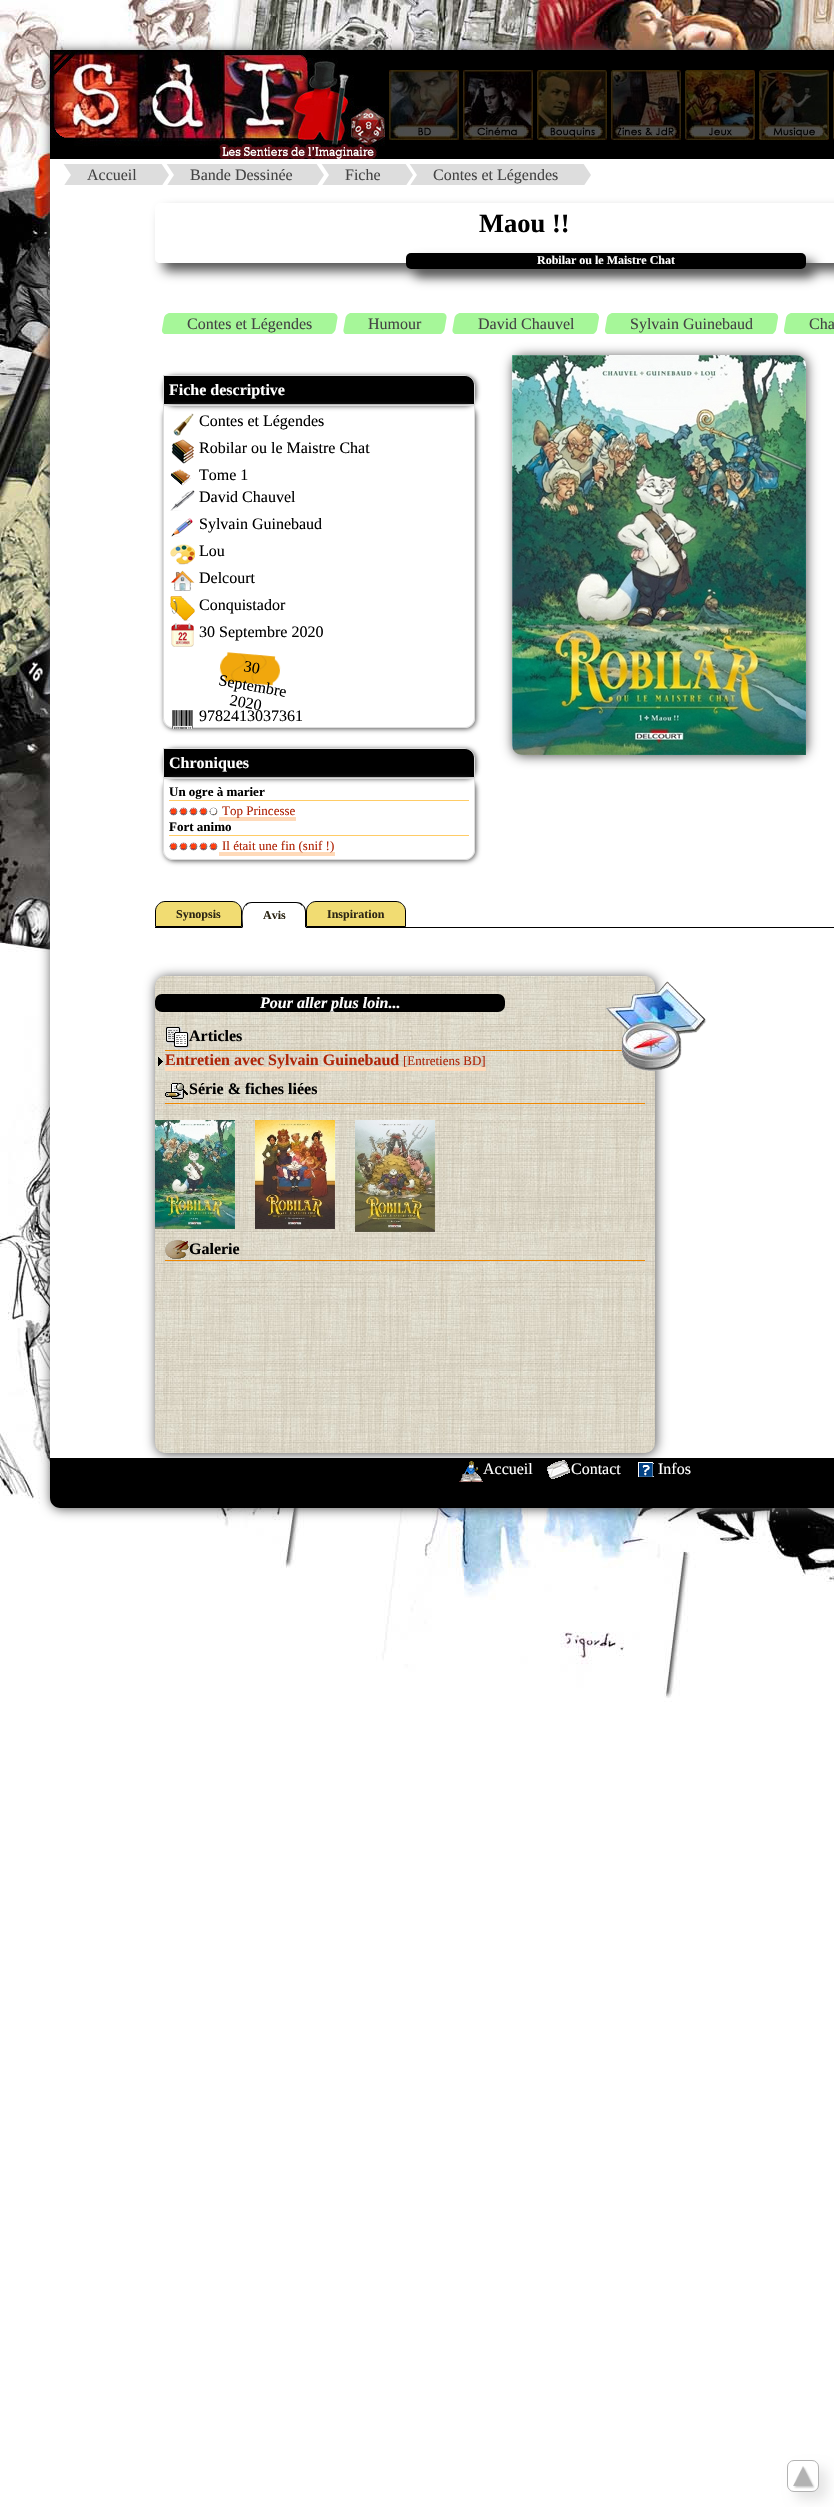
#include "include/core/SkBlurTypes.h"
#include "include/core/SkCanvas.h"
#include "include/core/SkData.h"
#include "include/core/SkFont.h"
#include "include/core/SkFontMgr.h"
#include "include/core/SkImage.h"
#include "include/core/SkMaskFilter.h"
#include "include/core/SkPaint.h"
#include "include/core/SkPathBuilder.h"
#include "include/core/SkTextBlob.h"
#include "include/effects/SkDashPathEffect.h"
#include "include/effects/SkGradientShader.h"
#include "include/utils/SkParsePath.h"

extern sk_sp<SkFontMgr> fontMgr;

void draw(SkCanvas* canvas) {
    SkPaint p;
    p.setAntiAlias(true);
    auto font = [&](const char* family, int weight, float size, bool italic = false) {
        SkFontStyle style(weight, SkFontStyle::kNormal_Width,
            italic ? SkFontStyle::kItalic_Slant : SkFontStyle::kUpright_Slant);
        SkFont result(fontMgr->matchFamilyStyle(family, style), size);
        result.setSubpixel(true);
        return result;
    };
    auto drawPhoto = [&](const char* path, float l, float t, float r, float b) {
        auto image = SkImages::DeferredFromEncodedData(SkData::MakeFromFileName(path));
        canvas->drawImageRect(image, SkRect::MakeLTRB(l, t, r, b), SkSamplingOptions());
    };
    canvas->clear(0xFFFFFFFF);
    drawPhoto("media/1.png", 0, 0, 834, 1702);
    p.setColor(0xFF555555);
    p.setMaskFilter(SkMaskFilter::MakeBlur(kNormal_SkBlurStyle, 6));
    canvas->drawRoundRect(SkRect::MakeLTRB(51, 51, 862, 1509), 10, 10, p);
    p.setMaskFilter(nullptr);
    p.setColor(0xFFFFFFFF);
    canvas->drawPath(SkPathBuilder().moveTo(50, 50).lineTo(834, 50).cubicTo(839.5f, 50, 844, 54.5f, 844, 60).lineTo(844, 1498).cubicTo(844, 1503.5f, 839.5f, 1508, 834, 1508).lineTo(60, 1508).cubicTo(54.5f, 1508, 50, 1503.5f, 50, 1498).close().detach(), p);
    p.setColor(0xFF000000);
    canvas->drawRect(SkRect::MakeLTRB(385, 50, 834, 159), p);
    drawPhoto("media/2.png", 50, 50, 385, 159);
    drawPhoto("media/3.png", 389, 70, 459, 140);
    drawPhoto("media/4.png", 463, 70, 533, 140);
    drawPhoto("media/5.png", 537, 70, 607, 140);
    drawPhoto("media/6.png", 611, 70, 681, 140);
    drawPhoto("media/7.png", 685, 70, 755, 140);
    drawPhoto("media/8.png", 759, 70, 829, 140);
    drawPhoto("media/9.png", 833, 70, 834, 140);
    p.setColor(0xFFDDDDDD);
    canvas->drawRect(SkRect::MakeLTRB(71, 164, 153, 185), p);
    canvas->save();
    canvas->clipRect(SkRect::MakeLTRB(55, 164, 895, 185));
    canvas->drawPath(SkPathBuilder().moveTo(55, 151).lineTo(71, 151).lineTo(71, 175).close().moveTo(71, 199).lineTo(55, 199).lineTo(71, 175).close().detach(), p);
    canvas->restore();
    auto font1 = font("Liberation Serif", 400, 16);
    p.setColor(0xFF444444);
    canvas->drawString("Accueil", 87, 180, font1, p);
    canvas->save();
    canvas->clipRect(SkRect::MakeLTRB(55, 164, 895, 185));
    p.setColor(0xFFDDDDDD);
    canvas->drawPath(SkPathBuilder().moveTo(153, 199).lineTo(153, 151).lineTo(169, 175).close().detach(), p);
    canvas->restore();
    canvas->drawRect(SkRect::MakeLTRB(174, 164, 308, 185), p);
    canvas->save();
    canvas->clipRect(SkRect::MakeLTRB(55, 164, 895, 185));
    canvas->drawPath(SkPathBuilder().moveTo(158, 151).lineTo(174, 151).lineTo(174, 175).close().moveTo(174, 199).lineTo(158, 199).lineTo(174, 175).close().detach(), p);
    canvas->restore();
    p.setColor(0xFF444444);
    canvas->drawString("Bande Dessinée", 190, 180, font1, p);
    canvas->save();
    canvas->clipRect(SkRect::MakeLTRB(55, 164, 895, 185));
    p.setColor(0xFFDDDDDD);
    canvas->drawPath(SkPathBuilder().moveTo(308, 199).lineTo(308, 151).lineTo(324, 175).close().detach(), p);
    canvas->restore();
    canvas->drawRect(SkRect::MakeLTRB(329, 164, 397, 185), p);
    canvas->save();
    canvas->clipRect(SkRect::MakeLTRB(55, 164, 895, 185));
    canvas->drawPath(SkPathBuilder().moveTo(313, 151).lineTo(329, 151).lineTo(329, 175).close().moveTo(329, 199).lineTo(313, 199).lineTo(329, 175).close().detach(), p);
    canvas->restore();
    p.setColor(0xFF444444);
    canvas->drawString("Fiche", 345, 180, font1, p);
    canvas->save();
    canvas->clipRect(SkRect::MakeLTRB(55, 164, 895, 185));
    p.setColor(0xFFDDDDDD);
    canvas->drawPath(SkPathBuilder().moveTo(397, 199).lineTo(397, 151).lineTo(413, 175).close().detach(), p);
    canvas->restore();
    canvas->drawRect(SkRect::MakeLTRB(417, 164, 575, 185), p);
    canvas->save();
    canvas->clipRect(SkRect::MakeLTRB(55, 164, 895, 185));
    canvas->drawPath(SkPathBuilder().moveTo(401, 151).lineTo(417, 151).lineTo(417, 175).close().moveTo(417, 199).lineTo(401, 199).lineTo(417, 175).close().detach(), p);
    canvas->restore();
    p.setColor(0xFF444444);
    canvas->drawString("Contes et Légendes", 433, 180, font1, p);
    canvas->save();
    canvas->clipRect(SkRect::MakeLTRB(55, 164, 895, 185));
    p.setColor(0xFFDDDDDD);
    canvas->drawPath(SkPathBuilder().moveTo(575, 199).lineTo(575, 151).lineTo(591, 175).close().detach(), p);
    canvas->restore();
    canvas->save();
    canvas->clipPath(SkPathBuilder(SkPathFillType::kEvenOdd).moveTo(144, 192).lineTo(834, 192).lineTo(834, 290).lineTo(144, 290).close().moveTo(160, 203).lineTo(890, 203).cubicTo(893, 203, 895, 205, 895, 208).lineTo(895, 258).cubicTo(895, 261, 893, 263, 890, 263).lineTo(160, 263).cubicTo(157, 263, 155, 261, 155, 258).lineTo(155, 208).cubicTo(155, 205, 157, 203, 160, 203).close().detach(), true);
    p.setColor(0xFF555555);
    p.setMaskFilter(SkMaskFilter::MakeBlur(kNormal_SkBlurStyle, 6));
    canvas->drawRoundRect(SkRect::MakeLTRB(163, 211, 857, 271), 5, 5, p);
    p.setMaskFilter(nullptr);
    canvas->restore();
    p.setStyle(SkPaint::kStroke_Style);
    p.setStrokeWidth(5);
    p.setColor(0xFFFFFFFF);
    canvas->drawRoundRect(SkRect::MakeLTRB(157.5f, 205.5f, 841.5f, 260.5f), 2.5f, 2.5f, p);
    auto font2 = font("Liberation Serif", 700, 26.5f);
    p.setStyle(SkPaint::kFill_Style);
    p.setColor(0xFF000000);
    canvas->drawString("Maou !!", 479, 232, font2, p);
    p.setColor(0xFF555555);
    p.setMaskFilter(SkMaskFilter::MakeBlur(kNormal_SkBlurStyle, 6));
    canvas->drawRoundRect(SkRect::MakeLTRB(414, 261, 814, 277), 5, 5, p);
    p.setMaskFilter(nullptr);
    p.setColor(0xFF000000);
    canvas->drawRoundRect(SkRect::MakeLTRB(406, 253, 806, 269), 5, 5, p);
    auto font3 = font("Liberation Serif", 700, 12);
    p.setColor(0xFFFFFFFF);
    canvas->drawString("Robilar ou le Maistre Chat", 537, 264, font3, p);
    p.setColor(0xFFA6F799);
    canvas->drawRect(SkRect::MakeLTRB(177, 313, 322, 334), p);
    canvas->save();
    canvas->clipRect(SkRect::MakeLTRB(155, 305, 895, 334));
    canvas->drawPath(SkPathBuilder().moveTo(170, 313).lineTo(181, 313).lineTo(177, 334.5f).lineTo(166, 334.5f).cubicTo(163.5f, 334.5f, 161.5f, 332, 162, 329.5f).lineTo(164, 318).cubicTo(164.5f, 315.5f, 167, 313, 170, 313).close().detach(), p);
    canvas->restore();
    p.setColor(0xFF444444);
    canvas->drawString("Contes et Légendes", 187, 329, font1, p);
    canvas->save();
    canvas->clipRect(SkRect::MakeLTRB(155, 305, 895, 334));
    p.setColor(0xFFA6F799);
    canvas->drawPath(SkPathBuilder().moveTo(322, 313).lineTo(333, 313).cubicTo(336, 313, 338, 315.5f, 337.5f, 318).lineTo(335.5f, 329.5f).cubicTo(335, 332, 332, 334.5f, 329.5f, 334.5f).lineTo(318.5f, 334.5f).close().detach(), p);
    canvas->restore();
    canvas->drawRect(SkRect::MakeLTRB(358, 313, 432, 334), p);
    canvas->save();
    canvas->clipRect(SkRect::MakeLTRB(155, 305, 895, 334));
    canvas->drawPath(SkPathBuilder().moveTo(351, 313).lineTo(362, 313).lineTo(358.5f, 334.5f).lineTo(347.5f, 334.5f).cubicTo(344.5f, 334.5f, 343, 332, 343.5f, 329.5f).lineTo(345.5f, 318).cubicTo(346, 315.5f, 348.5f, 313, 351, 313).close().detach(), p);
    canvas->restore();
    p.setColor(0xFF444444);
    canvas->drawString("Humour", 368, 329, font1, p);
    canvas->save();
    canvas->clipRect(SkRect::MakeLTRB(155, 305, 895, 334));
    p.setColor(0xFFA6F799);
    canvas->drawPath(SkPathBuilder().moveTo(431.5f, 313).lineTo(442.5f, 313).cubicTo(445.5f, 313, 447, 315.5f, 446.5f, 318).lineTo(444.5f, 329.5f).cubicTo(444, 332, 441.5f, 334.5f, 439, 334.5f).lineTo(428, 334.5f).close().detach(), p);
    canvas->restore();
    canvas->drawRect(SkRect::MakeLTRB(468, 313, 584, 334), p);
    canvas->save();
    canvas->clipRect(SkRect::MakeLTRB(155, 305, 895, 334));
    canvas->drawPath(SkPathBuilder().moveTo(460.5f, 313).lineTo(471.5f, 313).lineTo(468, 334.5f).lineTo(457, 334.5f).cubicTo(454, 334.5f, 452, 332, 452.5f, 329.5f).lineTo(454.5f, 318).cubicTo(455, 315.5f, 457.5f, 313, 460.5f, 313).close().detach(), p);
    canvas->restore();
    p.setColor(0xFF444444);
    canvas->drawString("David Chauvel", 478, 329, font1, p);
    canvas->save();
    canvas->clipRect(SkRect::MakeLTRB(155, 305, 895, 334));
    p.setColor(0xFFA6F799);
    canvas->drawPath(SkPathBuilder().moveTo(584, 313).lineTo(595, 313).cubicTo(597.5f, 313, 599.5f, 315.5f, 599, 318).lineTo(597, 329.5f).cubicTo(596.5f, 332, 594, 334.5f, 591, 334.5f).lineTo(580, 334.5f).close().detach(), p);
    canvas->restore();
    canvas->drawRect(SkRect::MakeLTRB(620, 313, 763, 334), p);
    canvas->save();
    canvas->clipRect(SkRect::MakeLTRB(155, 305, 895, 334));
    canvas->drawPath(SkPathBuilder().moveTo(613, 313).lineTo(624, 313).lineTo(620, 334.5f).lineTo(609, 334.5f).cubicTo(606.5f, 334.5f, 604.5f, 332, 605, 329.5f).lineTo(607, 318).cubicTo(607.5f, 315.5f, 610, 313, 613, 313).close().detach(), p);
    canvas->restore();
    p.setColor(0xFF444444);
    canvas->drawString("Sylvain Guinebaud", 630, 329, font1, p);
    canvas->save();
    canvas->clipRect(SkRect::MakeLTRB(155, 305, 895, 334));
    p.setColor(0xFFA6F799);
    canvas->drawPath(SkPathBuilder().moveTo(763, 313).lineTo(774, 313).cubicTo(777, 313, 778.5f, 315.5f, 778, 318).lineTo(776, 329.5f).cubicTo(775.5f, 332, 773, 334.5f, 770.5f, 334.5f).lineTo(759.5f, 334.5f).close().detach(), p);
    canvas->restore();
    canvas->drawRect(SkRect::MakeLTRB(799, 313, 834, 334), p);
    canvas->save();
    canvas->clipRect(SkRect::MakeLTRB(155, 305, 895, 334));
    canvas->drawPath(SkPathBuilder().moveTo(792, 313).lineTo(803, 313).lineTo(799.5f, 334.5f).lineTo(788.5f, 334.5f).cubicTo(785.5f, 334.5f, 783.5f, 332, 784, 329.5f).lineTo(786, 318).cubicTo(786.5f, 315.5f, 789, 313, 792, 313).close().detach(), p);
    canvas->restore();
    p.setColor(0xFF444444);
    canvas->drawString("Cha", 809, 329, font1, p);
    p.setColor(0xFF555555);
    p.setMaskFilter(SkMaskFilter::MakeBlur(kNormal_SkBlurStyle, 2.5f));
    canvas->drawRoundRect(SkRect::MakeLTRB(164, 376, 476, 406), 10, 10, p);
    p.setMaskFilter(nullptr);
    p.setColor(0xFF000000);
    canvas->drawPath(SkPathBuilder().moveTo(163.5f, 375.5f).lineTo(465, 375.5f).cubicTo(470, 375.5f, 474.5f, 380, 474.5f, 385).lineTo(474.5f, 404.5f).lineTo(163.5f, 404.5f).close().detach(), p);
    p.setStyle(SkPaint::kStroke_Style);
    p.setStrokeWidth(1);
    p.setColor(0xFFDDDDDD);
    canvas->drawPath(SkPathBuilder().moveTo(163.5f, 375.5f).lineTo(465, 375.5f).cubicTo(470, 375.5f, 474.5f, 380, 474.5f, 385).lineTo(474.5f, 404.5f).lineTo(163.5f, 404.5f).close().detach(), p);
    canvas->save();
    canvas->clipPath(SkPathBuilder(SkPathFillType::kEvenOdd).moveTo(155, 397).lineTo(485, 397).lineTo(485, 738).lineTo(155, 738).close().moveTo(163, 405).lineTo(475, 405).lineTo(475, 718).cubicTo(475, 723.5f, 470.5f, 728, 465, 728).lineTo(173, 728).cubicTo(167.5f, 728, 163, 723.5f, 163, 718).close().detach(), true);
    p.setStyle(SkPaint::kFill_Style);
    p.setColor(0xFF555555);
    p.setMaskFilter(SkMaskFilter::MakeBlur(kNormal_SkBlurStyle, 2.5f));
    canvas->drawRoundRect(SkRect::MakeLTRB(164, 406, 476, 729), 10, 10, p);
    p.setMaskFilter(nullptr);
    canvas->restore();
    auto font4 = font("Liberation Serif", 700, 16);
    p.setColor(0xFFFFFFFF);
    canvas->drawString("Fiche descriptive", 169, 395, font4, p);
    p.setStyle(SkPaint::kStroke_Style);
    p.setColor(0xFFDDDDDD);
    canvas->drawPath(SkPathBuilder().moveTo(163.5f, 405.5f).lineTo(474.5f, 405.5f).lineTo(474.5f, 718).cubicTo(474.5f, 723, 470, 727.5f, 465, 727.5f).lineTo(173, 727.5f).cubicTo(168, 727.5f, 163.5f, 723, 163.5f, 718).close().detach(), p);
    drawPhoto("media/10.png", 173, 413, 194, 436);
    p.setStyle(SkPaint::kFill_Style);
    p.setColor(0xFF000000);
    canvas->drawString("Contes et Légendes", 199, 426, font1, p);
    drawPhoto("media/11.png", 171, 439, 194, 464);
    canvas->drawString("Robilar ou le Maistre Chat", 199, 453, font1, p);
    drawPhoto("media/12.png", 170, 469, 191, 486);
    canvas->drawString("Tome 1", 199, 480, font1, p);
    drawPhoto("media/13.png", 170, 490, 195, 511);
    canvas->drawString("David Chauvel", 199, 502, font1, p);
    drawPhoto("media/14.png", 171, 518, 193, 537);
    canvas->drawString("Sylvain Guinebaud", 199, 529, font1, p);
    drawPhoto("media/15.png", 170, 544, 195, 565);
    canvas->drawString("Lou", 199, 556, font1, p);
    drawPhoto("media/16.png", 170, 570, 195, 591);
    canvas->drawString("Delcourt", 199, 583, font1, p);
    drawPhoto("media/17.png", 170, 596, 195, 621);
    canvas->drawString("Conquistador", 199, 610, font1, p);
    drawPhoto("media/18.png", 171, 623, 194, 647);
    canvas->drawString("30 Septembre 2020", 199, 637, font1, p);
    drawPhoto("media/19.png", 219, 652, 281, 686);
    canvas->save();
    canvas->rotate(10, 243, 671);
    canvas->drawString("30", 243, 671, font1, p);
    canvas->restore();
    canvas->save();
    canvas->rotate(10, 218, 685);
    canvas->drawString("Septembre", 218, 685, font1, p);
    canvas->restore();
    canvas->save();
    canvas->rotate(10, 229, 705);
    canvas->drawString("2020", 229, 705, font1, p);
    canvas->restore();
    drawPhoto("media/20.png", 172, 710, 193, 729);
    canvas->drawString("9782413037361", 199, 721, font1, p);
    p.setColor(0xFF555555);
    p.setMaskFilter(SkMaskFilter::MakeBlur(kNormal_SkBlurStyle, 2.5f));
    canvas->drawRoundRect(SkRect::MakeLTRB(164, 749, 476, 779), 10, 10, p);
    p.setMaskFilter(nullptr);
    p.setColor(0xFF000000);
    canvas->drawPath(SkPathBuilder().moveTo(163.5f, 748.5f).lineTo(465, 748.5f).cubicTo(470, 748.5f, 474.5f, 753, 474.5f, 758).lineTo(474.5f, 777.5f).lineTo(163.5f, 777.5f).close().detach(), p);
    p.setStyle(SkPaint::kStroke_Style);
    p.setColor(0xFFDDDDDD);
    canvas->drawPath(SkPathBuilder().moveTo(163.5f, 748.5f).lineTo(465, 748.5f).cubicTo(470, 748.5f, 474.5f, 753, 474.5f, 758).lineTo(474.5f, 777.5f).lineTo(163.5f, 777.5f).close().detach(), p);
    canvas->save();
    canvas->clipPath(SkPathBuilder(SkPathFillType::kEvenOdd).moveTo(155, 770).lineTo(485, 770).lineTo(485, 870).lineTo(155, 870).close().moveTo(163, 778).lineTo(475, 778).lineTo(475, 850).cubicTo(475, 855.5f, 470.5f, 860, 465, 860).lineTo(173, 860).cubicTo(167.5f, 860, 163, 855.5f, 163, 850).close().detach(), true);
    p.setStyle(SkPaint::kFill_Style);
    p.setColor(0xFF555555);
    p.setMaskFilter(SkMaskFilter::MakeBlur(kNormal_SkBlurStyle, 2.5f));
    canvas->drawRoundRect(SkRect::MakeLTRB(164, 779, 476, 861), 10, 10, p);
    p.setMaskFilter(nullptr);
    canvas->restore();
    p.setColor(0xFFFFFFFF);
    canvas->drawString("Chroniques", 169, 768, font4, p);
    p.setStyle(SkPaint::kStroke_Style);
    p.setColor(0xFFDDDDDD);
    canvas->drawPath(SkPathBuilder().moveTo(163.5f, 778.5f).lineTo(474.5f, 778.5f).lineTo(474.5f, 850).cubicTo(474.5f, 855, 470, 859.5f, 465, 859.5f).lineTo(173, 859.5f).cubicTo(168, 859.5f, 163.5f, 855, 163.5f, 850).close().detach(), p);
    p.setStyle(SkPaint::kFill_Style);
    p.setColor(0xFFFFCC66);
    canvas->drawRect(SkRect::MakeLTRB(169, 800, 469, 801), p);
    auto font5 = font("Liberation Serif", 700, 13);
    p.setColor(0xFF000000);
    canvas->drawString("Un ogre à marier", 169, 796, font5, p);
    drawPhoto("media/21.png", 169, 807, 178, 816);
    drawPhoto("media/21.png", 179, 807, 188, 816);
    drawPhoto("media/21.png", 189, 807, 198, 816);
    drawPhoto("media/21.png", 199, 807, 208, 816);
    drawPhoto("media/22.png", 209, 807, 218, 816);
    p.setColor(0xFFFFDAB9);
    canvas->drawRect(SkRect::MakeLTRB(219, 817, 296, 821), p);
    auto font6 = font("Liberation Serif", 400, 13);
    p.setColor(0xFFB02507);
    canvas->drawString("Top Princesse", 222, 815, font6, p);
    p.setColor(0xFFFFCC66);
    canvas->drawRect(SkRect::MakeLTRB(169, 835, 469, 836), p);
    p.setColor(0xFF000000);
    canvas->drawString("Fort animo", 169, 831, font5, p);
    drawPhoto("media/21.png", 169, 842, 178, 851);
    drawPhoto("media/21.png", 179, 842, 188, 851);
    drawPhoto("media/21.png", 189, 842, 198, 851);
    drawPhoto("media/21.png", 199, 842, 208, 851);
    drawPhoto("media/21.png", 209, 842, 218, 851);
    p.setColor(0xFFFFDAB9);
    canvas->drawRect(SkRect::MakeLTRB(219, 852, 335, 856), p);
    p.setColor(0xFFB02507);
    canvas->drawString("Il était une fin (snif !)", 222, 850, font6, p);
    p.setColor(0xFF555555);
    p.setMaskFilter(SkMaskFilter::MakeBlur(kNormal_SkBlurStyle, 6));
    canvas->drawRoundRect(SkRect::MakeLTRB(513, 356, 807, 756), 10, 10, p);
    p.setMaskFilter(nullptr);
    drawPhoto("media/23.png", 512, 355, 806, 755);
    p.setColor(0xFF000000);
    canvas->drawRect(SkRect::MakeLTRB(155, 927, 834, 928), p);
    p.setColor(0xFFF1DC72);
    canvas->drawPath(SkPathBuilder().moveTo(165, 901.5f).lineTo(232, 901.5f).cubicTo(237, 901.5f, 241.5f, 906, 241.5f, 911).lineTo(241.5f, 926.5f).lineTo(155.5f, 926.5f).lineTo(155.5f, 911).cubicTo(155.5f, 906, 160, 901.5f, 165, 901.5f).close().detach(), p);
    p.setStyle(SkPaint::kStroke_Style);
    p.setColor(0xFF000000);
    canvas->drawPath(SkPathBuilder().moveTo(165, 901.5f).lineTo(232, 901.5f).cubicTo(237, 901.5f, 241.5f, 906, 241.5f, 911).lineTo(241.5f, 926.5f).lineTo(155.5f, 926.5f).lineTo(155.5f, 911).cubicTo(155.5f, 906, 160, 901.5f, 165, 901.5f).close().detach(), p);
    p.setStyle(SkPaint::kFill_Style);
    p.setColor(0xFF2D2614);
    canvas->drawString("Synopsis", 176, 918, font3, p);
    p.setColor(0xFFFFFFFF);
    canvas->drawPath(SkPathBuilder().moveTo(252, 902).lineTo(296, 902).cubicTo(301.5f, 902, 306, 906.5f, 306, 912).lineTo(306, 928).lineTo(242, 928).lineTo(242, 912).cubicTo(242, 906.5f, 246.5f, 902, 252, 902).close().detach(), p);
    p.setColor(0xFF2D2614);
    canvas->drawString("Avis", 263, 919, font3, p);
    p.setColor(0xFF000000);
    canvas->drawPath(SkPathBuilder().moveTo(252, 902).cubicTo(249, 902, 246, 903, 245, 905).lineTo(246, 906).cubicTo(247, 904, 249, 903, 252, 903).lineTo(296, 903).cubicTo(298, 903, 301, 904, 302, 906).lineTo(303, 905).cubicTo(302, 903, 299, 902, 296, 902).close().detach(), p);
    canvas->drawPath(SkPathBuilder().moveTo(306, 928).lineTo(306, 912).cubicTo(306, 909, 305, 906.5f, 303, 905).lineTo(302.5f, 905.5f).cubicTo(304, 907, 305, 909.5f, 305, 912).lineTo(305, 927).close().detach(), p);
    p.setColor(0xFFFFFFFF);
    canvas->drawPath(SkPathBuilder().moveTo(306, 928).lineTo(305, 927).lineTo(243, 927).lineTo(242, 928).close().detach(), p);
    p.setColor(0xFF000000);
    canvas->drawPath(SkPathBuilder().moveTo(242, 928).lineTo(242, 913).cubicTo(242.5f, 910, 243, 907, 245, 905).lineTo(245.5f, 905.5f).cubicTo(241, 911, 243, 920.5f, 243, 927).close().detach(), p);
    p.setColor(0xFFF1DC72);
    canvas->drawPath(SkPathBuilder().moveTo(316, 901.5f).lineTo(396, 901.5f).cubicTo(401, 901.5f, 405.5f, 906, 405.5f, 911).lineTo(405.5f, 926.5f).lineTo(306.5f, 926.5f).lineTo(306.5f, 911).cubicTo(306.5f, 906, 311, 901.5f, 316, 901.5f).close().detach(), p);
    p.setStyle(SkPaint::kStroke_Style);
    p.setColor(0xFF000000);
    canvas->drawPath(SkPathBuilder().moveTo(316, 901.5f).lineTo(396, 901.5f).cubicTo(401, 901.5f, 405.5f, 906, 405.5f, 911).lineTo(405.5f, 926.5f).lineTo(306.5f, 926.5f).lineTo(306.5f, 911).cubicTo(306.5f, 906, 311, 901.5f, 316, 901.5f).close().detach(), p);
    p.setStyle(SkPaint::kFill_Style);
    p.setColor(0xFF2D2614);
    canvas->drawString("Inspiration", 327, 918, font3, p);
    p.setColor(0xFF000000);
    canvas->drawPath(SkPathBuilder().moveTo(50, 1458).lineTo(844, 1458).lineTo(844, 1498).cubicTo(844, 1503.5f, 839.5f, 1508, 834, 1508).lineTo(60, 1508).cubicTo(54.5f, 1508, 50, 1503.5f, 50, 1498).close().detach(), p);
    drawPhoto("media/33.png", 459, 1461, 483, 1482);
    drawPhoto("media/34.png", 547, 1460, 570, 1479);
    drawPhoto("media/35.png", 638, 1462, 654, 1477);
    canvas->save();
    canvas->clipRect(SkRect::MakeLTRB(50, 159, 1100, 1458));
    p.setColor(0xFF555555);
    p.setMaskFilter(SkMaskFilter::MakeBlur(kNormal_SkBlurStyle, 6));
    canvas->drawRoundRect(SkRect::MakeLTRB(156, 977, 656, 1454), 10, 10, p);
    p.setMaskFilter(nullptr);
    canvas->restore();
    drawPhoto("media/24.png", 155, 976, 655, 1453);
    p.setColor(0xFF000000);
    canvas->drawRoundRect(SkRect::MakeLTRB(155, 994, 505, 1012), 7, 7, p);
    auto font7 = font("Liberation Serif", 700, 16, true);
    p.setColor(0xFFFFFFFF);
    canvas->drawString("Pour aller plus loin...", 260, 1008, font7, p);
    p.setColor(0xFFEF8700);
    canvas->drawRect(SkRect::MakeLTRB(165, 1050, 622, 1051), p);
    drawPhoto("media/25.png", 166, 1027, 189, 1050);
    p.setColor(0xFF000000);
    canvas->drawString("Articles", 189, 1041, font4, p);
    drawPhoto("media/26.png", 158, 1057, 163, 1066);
    p.setColor(0xFFFFDAB9);
    canvas->drawRect(SkRect::MakeLTRB(165, 1067, 399, 1071), p);
    p.setColor(0xFFB02507);
    canvas->drawString("Entretien avec Sylvain Guinebaud", 165, 1065, font4, p);
    canvas->drawString("[Entretiens BD]", 403, 1065, font6, p);
    p.setColor(0xFFFFDAB9);
    canvas->drawRect(SkRect::MakeLTRB(399, 1067, 486, 1071), p);
    p.setColor(0xFFEF8700);
    canvas->drawRect(SkRect::MakeLTRB(165, 1103, 645, 1104), p);
    drawPhoto("media/27.png", 165, 1083, 188, 1099);
    p.setColor(0xFF000000);
    canvas->drawString("Série & fiches liées", 189, 1094, font4, p);
    drawPhoto("media/28.png", 155, 1120, 235, 1229);
    drawPhoto("media/29.png", 255, 1120, 335, 1229);
    drawPhoto("media/30.png", 355, 1120, 435, 1232);
    p.setColor(0xFFEF8700);
    canvas->drawRect(SkRect::MakeLTRB(165, 1260, 645, 1261), p);
    drawPhoto("media/31.png", 165, 1240, 189, 1259);
    p.setColor(0xFF000000);
    canvas->drawString("Galerie", 189, 1254, font4, p);
    drawPhoto("media/32.png", 606, 981, 707, 1071);
    p.setColor(0xFFFFFFFF);
    {
        const struct { const char* s; float x, y; } items[] = {
            {"Accueil", 483, 1474},
            {"Contact", 571, 1474},
            {"Infos", 658, 1474},
        };
        for (auto [s, x, y] : items) {
            canvas->drawString(s, x, y, font1, p);
        }
    }
    p.setColor(0xFFE6E6E6);
    p.setMaskFilter(SkMaskFilter::MakeBlur(kNormal_SkBlurStyle, 6));
    canvas->drawRoundRect(SkRect::MakeLTRB(795, 2468, 827, 2500), 7, 7, p);
    p.setMaskFilter(nullptr);
    p.setColor(0xFFFFFFFF);
    canvas->drawRoundRect(SkRect::MakeLTRB(787.5f, 2460.5f, 818.5f, 2491.5f), 6.5f, 6.5f, p);
    p.setStyle(SkPaint::kStroke_Style);
    p.setColor(0xFFB3B3B3);
    canvas->drawRoundRect(SkRect::MakeLTRB(787.5f, 2460.5f, 818.5f, 2491.5f), 6.5f, 6.5f, p);
    drawPhoto("media/36.png", 793, 2466, 815, 2489);
}
